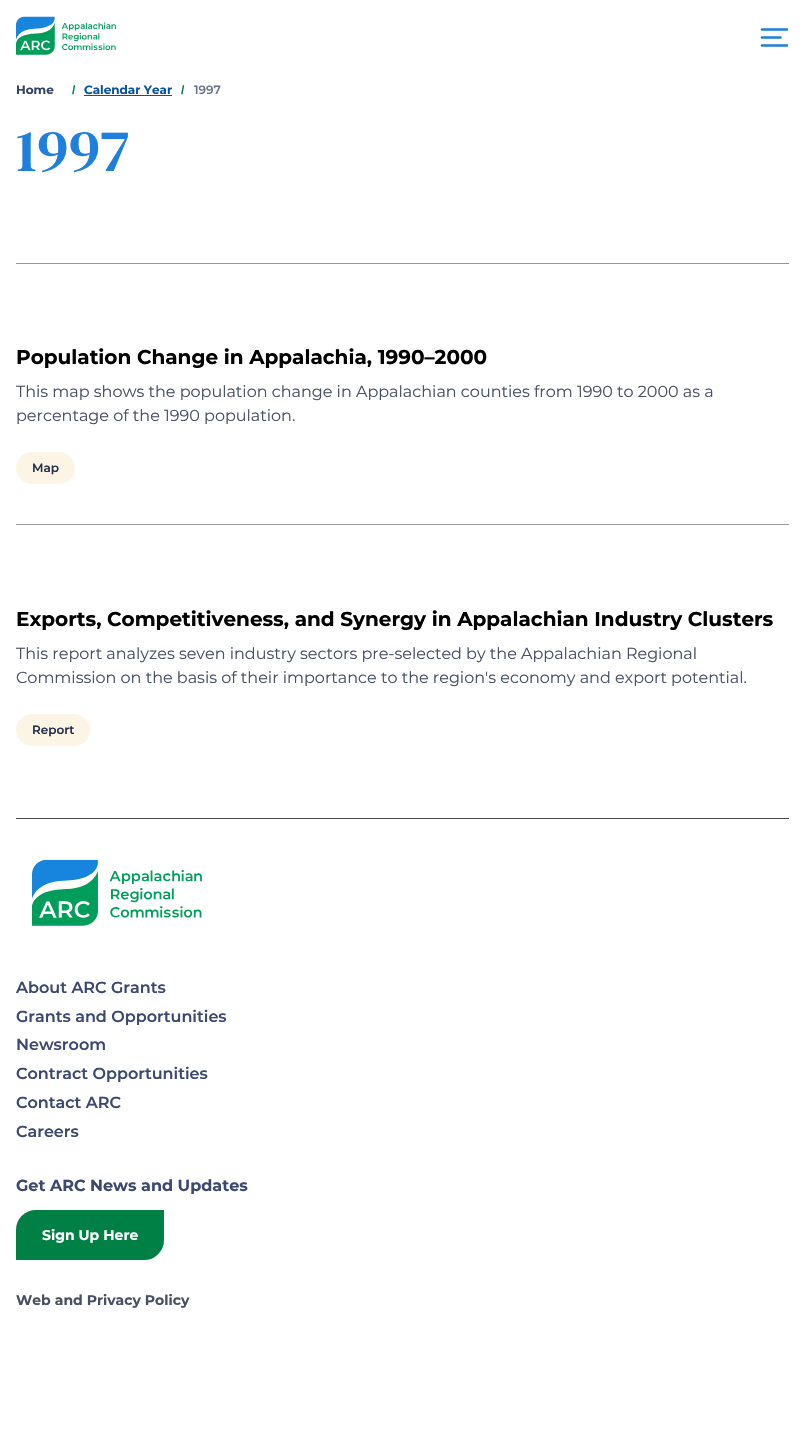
#include "include/core/SkBlurTypes.h"
#include "include/core/SkCanvas.h"
#include "include/core/SkData.h"
#include "include/core/SkFont.h"
#include "include/core/SkFontMgr.h"
#include "include/core/SkImage.h"
#include "include/core/SkMaskFilter.h"
#include "include/core/SkPaint.h"
#include "include/core/SkPathBuilder.h"
#include "include/core/SkTextBlob.h"
#include "include/effects/SkDashPathEffect.h"
#include "include/effects/SkGradientShader.h"
#include "include/utils/SkParsePath.h"

extern sk_sp<SkFontMgr> fontMgr;

void draw(SkCanvas* canvas) {
    SkPaint p;
    p.setAntiAlias(true);
    auto font = [&](const char* family, int weight, float size, bool italic = false) {
        SkFontStyle style(weight, SkFontStyle::kNormal_Width,
            italic ? SkFontStyle::kItalic_Slant : SkFontStyle::kUpright_Slant);
        SkFont result(fontMgr->matchFamilyStyle(family, style), size);
        result.setSubpixel(true);
        return result;
    };
    auto drawPhoto = [&](const char* path, float l, float t, float r, float b) {
        auto image = SkImages::DeferredFromEncodedData(SkData::MakeFromFileName(path));
        canvas->drawImageRect(image, SkRect::MakeLTRB(l, t, r, b), SkSamplingOptions());
    };
    canvas->clear(0xFFFFFFFF);
    drawPhoto("media/1.png", 16, 16, 116, 55);
    p.setStyle(SkPaint::kStroke_Style);
    p.setStrokeWidth(2.7f);
    p.setStrokeCap(SkPaint::kRound_Cap);
    p.setStrokeJoin(SkPaint::kRound_Join);
    p.setColor(0xFF1F7FDD);
    canvas->drawPath(SkPathBuilder().moveTo(762, 37.5f).lineTo(780.5f, 37.5f).moveTo(762, 29.5f).lineTo(787, 29.5f).moveTo(762, 45.5f).lineTo(787, 45.5f).detach(), p);
    auto font1 = font("Montserrat", 700, 12);
    p.setStyle(SkPaint::kFill_Style);
    p.setColor(0xFF334165);
    canvas->drawString("Home", 16, 94, font1, p);
    auto font2 = font("Liberation Sans", 700, 12);
    p.setColor(0xFF008045);
    canvas->drawString("/", 72, 94, font2, p);
    p.setColor(0xFF08549E);
    canvas->drawString("Calendar Year", 84, 94, font1, p);
    canvas->drawRect(SkRect::MakeLTRB(84, 95, 172, 96), p);
    p.setColor(0xFF008045);
    canvas->drawString("/", 181, 94, font2, p);
    auto font3 = font("Montserrat", 600, 12);
    p.setColor(0xFF6C758B);
    canvas->drawString("1997", 194, 94, font3, p);
    auto font4 = font("DM Serif Text", 400, 60);
    p.setColor(0xFF1F7FDD);
    canvas->drawString("1997", 16, 171, font4, p);
    p.setColor(0xFF979797);
    canvas->drawRect(SkRect::MakeLTRB(16, 263, 789, 264), p);
    auto font5 = font("Montserrat", 700, 20);
    p.setColor(0xFF000000);
    canvas->drawString("Population Change in Appalachia, 1990–2000", 16, 364, font5, p);
    auto font6 = font("Montserrat", 400, 16);
    p.setColor(0xFF485064);
    canvas->drawString("This map shows the population change in Appalachian counties from 1990 to 2000 as a", 16, 397, font6, p);
    canvas->drawString("percentage of the 1990 population.", 16, 421, font6, p);
    p.setColor(0xFFFCF5E5);
    canvas->drawRoundRect(SkRect::MakeLTRB(16, 452, 75, 484), 16, 16, p);
    p.setColor(0xFF252F49);
    canvas->drawString("Map", 32, 472, font3, p);
    p.setColor(0xFF979797);
    canvas->drawRect(SkRect::MakeLTRB(16, 524, 789, 525), p);
    p.setColor(0xFF000000);
    canvas->drawString("Exports, Competitiveness, and Synergy in Appalachian Industry Clusters", 16, 626, font5, p);
    p.setColor(0xFF485064);
    canvas->drawString("This report analyzes seven industry sectors pre-selected by the Appalachian Regional", 16, 659, font6, p);
    canvas->drawString("Commission on the basis of their importance to the region's economy and export potential.", 16, 683, font6, p);
    p.setColor(0xFFFCF5E5);
    canvas->drawRoundRect(SkRect::MakeLTRB(16, 714, 90, 746), 16, 16, p);
    p.setColor(0xFF252F49);
    canvas->drawString("Report", 32, 734, font3, p);
    p.setColor(0xFF47494B);
    canvas->drawRect(SkRect::MakeLTRB(16, 818, 789, 819), p);
    drawPhoto("media/2.png", 32, 859, 202, 926);
    auto font7 = font("Montserrat", 600, 16);
    p.setColor(0xFF3B4971);
    {
        const struct { const char* s; float x, y; } items[] = {
            {"About ARC Grants", 16, 993},
            {"Grants and Opportunities", 16, 1022},
            {"Newsroom", 16, 1050},
            {"Contract Opportunities", 16, 1079},
            {"Contact ARC", 16, 1108},
            {"Careers", 16, 1137},
        };
        for (auto [s, x, y] : items) {
            canvas->drawString(s, x, y, font7, p);
        }
    }
    auto font8 = font("Montserrat", 700, 16);
    canvas->drawString("Get ARC News and Updates", 16, 1191, font8, p);
    p.setColor(0xFF008045);
    canvas->drawPath(SkPathBuilder().moveTo(36, 1211).lineTo(163, 1211).lineTo(163, 1240).cubicTo(163, 1250.5f, 154.5f, 1259, 144, 1259).lineTo(17, 1259).lineTo(17, 1230).cubicTo(17, 1219.5f, 25.5f, 1211, 36, 1211).close().detach(), p);
    p.setStyle(SkPaint::kStroke_Style);
    p.setStrokeWidth(2);
    p.setStrokeCap(SkPaint::kButt_Cap);
    p.setStrokeJoin(SkPaint::kMiter_Join);
    canvas->drawPath(SkPathBuilder().moveTo(36, 1211).lineTo(163, 1211).lineTo(163, 1240).cubicTo(163, 1250.5f, 154.5f, 1259, 144, 1259).lineTo(17, 1259).lineTo(17, 1230).cubicTo(17, 1219.5f, 25.5f, 1211, 36, 1211).close().detach(), p);
    auto font9 = font("Montserrat", 700, 14);
    p.setStyle(SkPaint::kFill_Style);
    p.setColor(0xFFFFFFFF);
    canvas->drawString("Sign Up Here", 42, 1240, font9, p);
    p.setColor(0xFF485064);
    canvas->drawString("Web and Privacy Policy", 16, 1305, font9, p);
}
